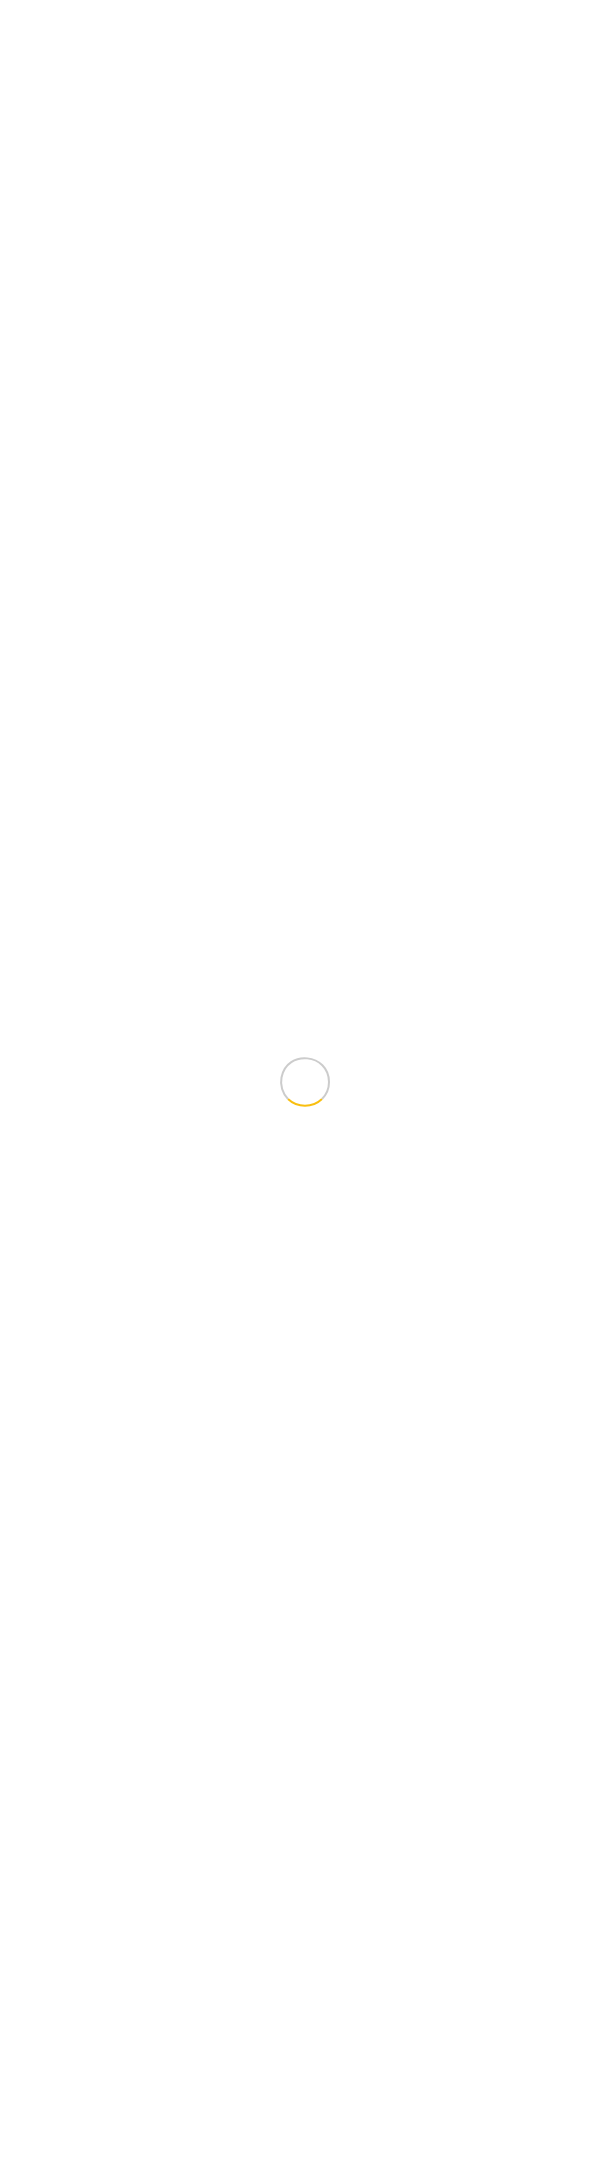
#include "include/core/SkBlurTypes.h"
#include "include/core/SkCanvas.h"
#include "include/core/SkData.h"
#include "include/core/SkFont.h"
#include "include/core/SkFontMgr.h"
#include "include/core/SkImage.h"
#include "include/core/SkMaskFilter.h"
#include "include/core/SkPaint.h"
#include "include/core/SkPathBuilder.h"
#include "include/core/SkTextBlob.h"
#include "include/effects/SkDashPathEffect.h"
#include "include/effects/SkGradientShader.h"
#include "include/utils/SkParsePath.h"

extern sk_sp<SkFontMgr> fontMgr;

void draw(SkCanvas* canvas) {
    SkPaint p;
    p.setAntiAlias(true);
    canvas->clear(0xFFFFFFFF);
    p.setStyle(SkPaint::kStroke_Style);
    p.setStrokeWidth(2);
    p.setColor(0xFFF9BF0F);
    canvas->drawPath(SkPathBuilder().moveTo(322, 1099).cubicTo(312.5f, 1108, 297.5f, 1108, 288, 1099).detach(), p);
    p.setColor(0xFFCCCCCC);
    canvas->drawPath(SkPathBuilder().moveTo(288, 1099).cubicTo(282.5f, 1093.5f, 280, 1085, 281.5f, 1077.5f).cubicTo(287, 1049, 329, 1053.5f, 329, 1082).cubicTo(329, 1088.5f, 326.5f, 1094.5f, 322, 1099).detach(), p);
}
